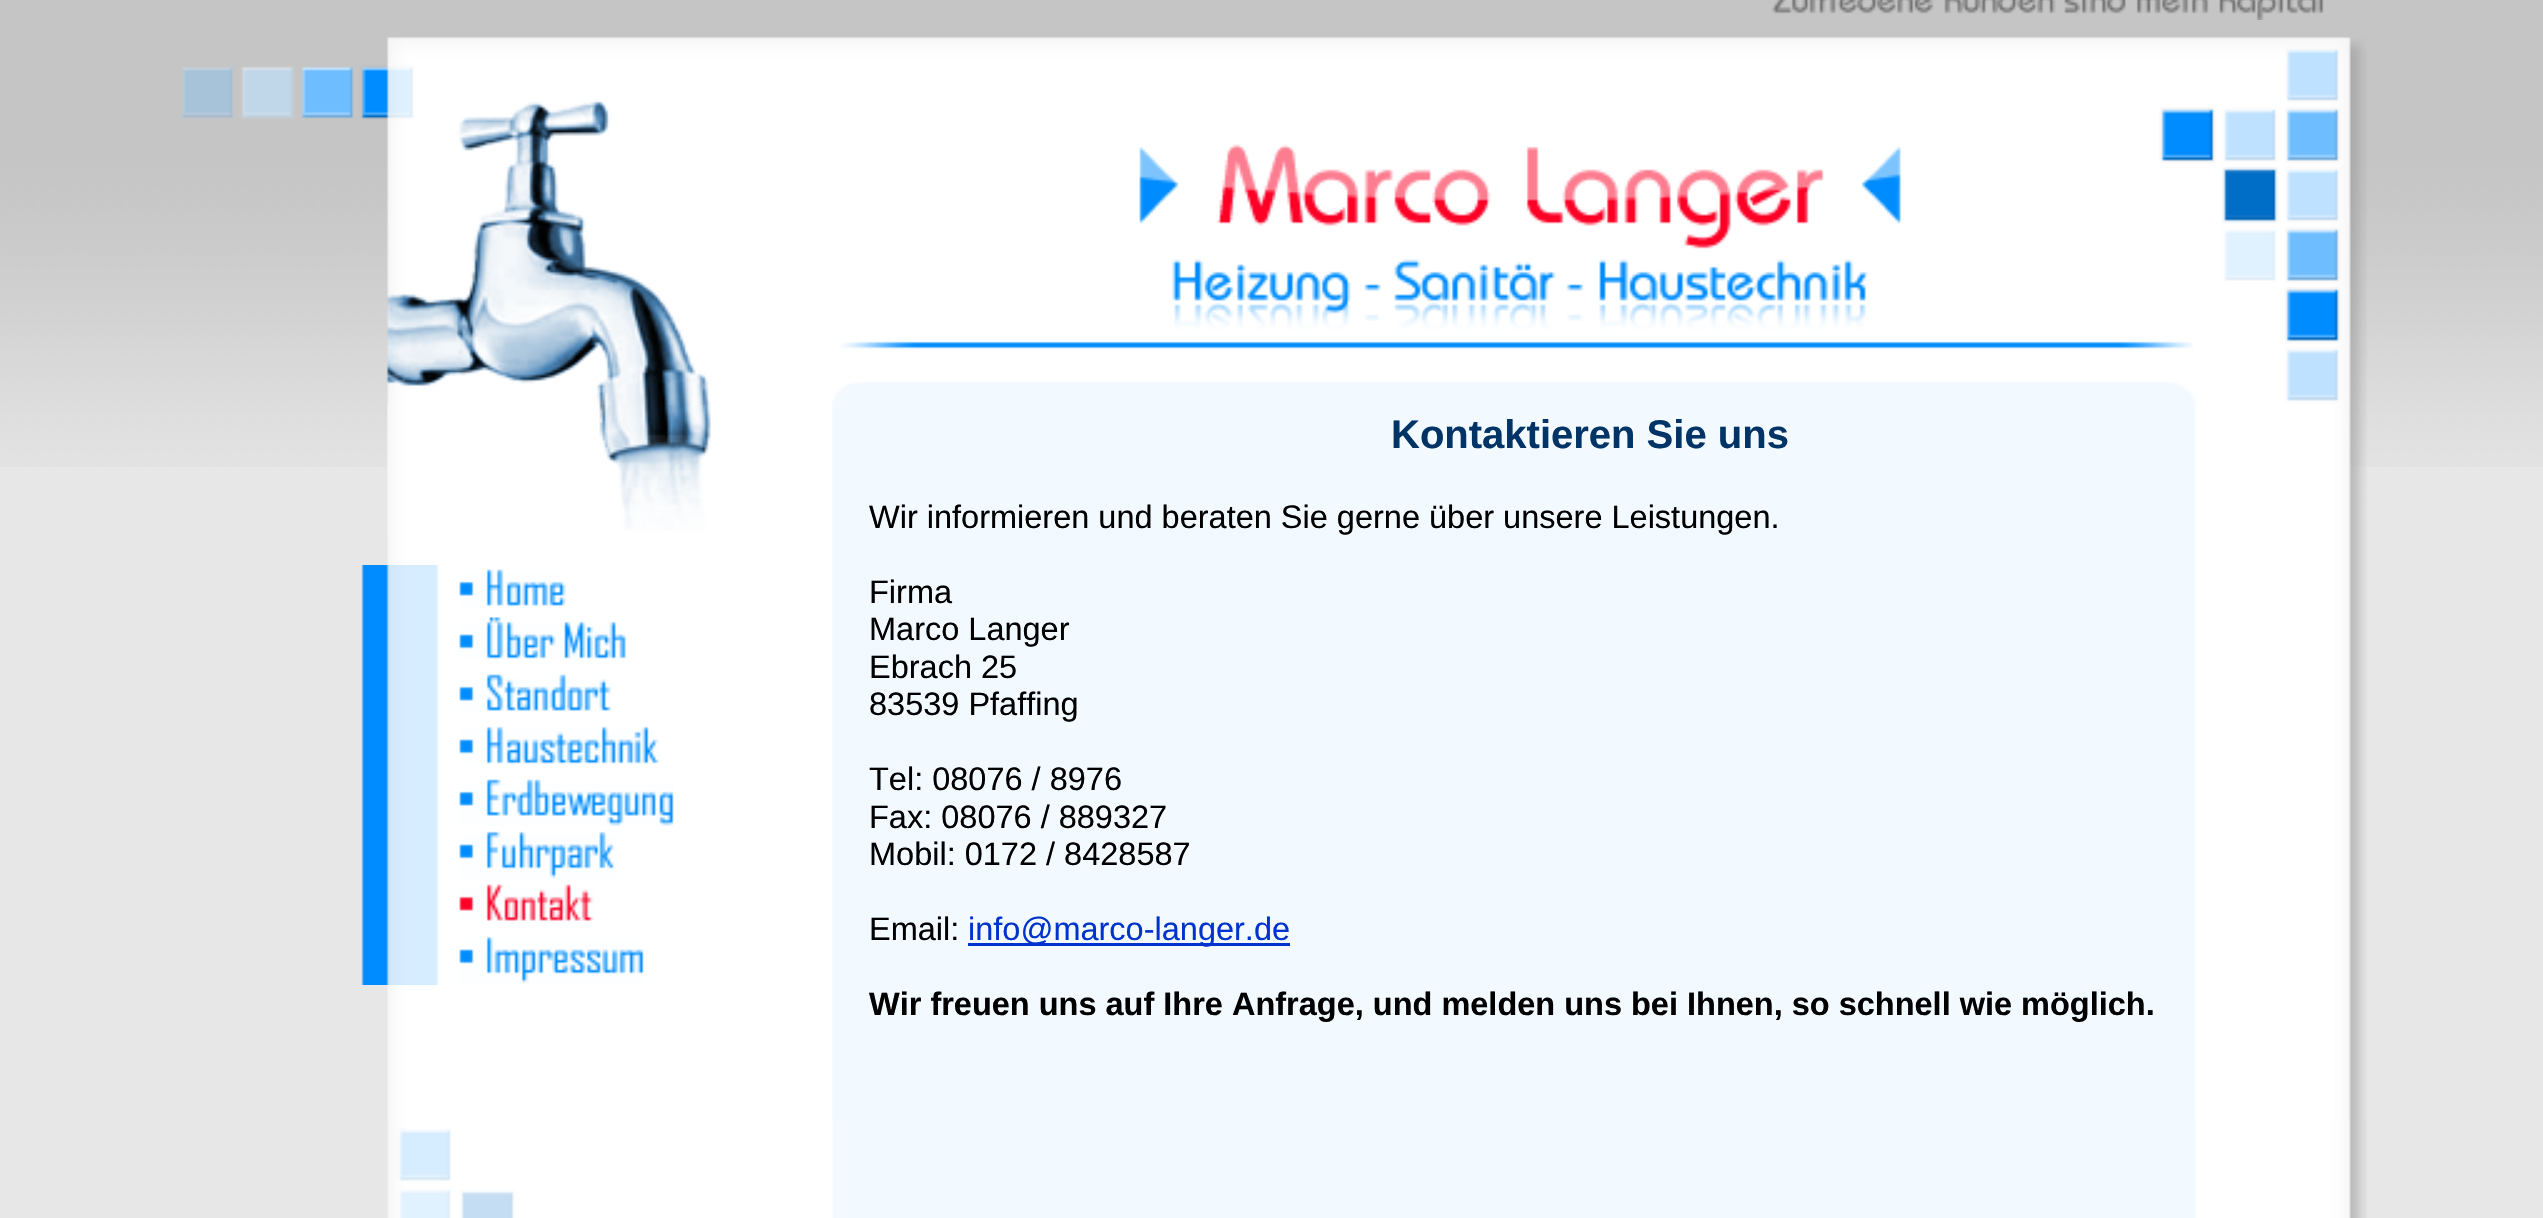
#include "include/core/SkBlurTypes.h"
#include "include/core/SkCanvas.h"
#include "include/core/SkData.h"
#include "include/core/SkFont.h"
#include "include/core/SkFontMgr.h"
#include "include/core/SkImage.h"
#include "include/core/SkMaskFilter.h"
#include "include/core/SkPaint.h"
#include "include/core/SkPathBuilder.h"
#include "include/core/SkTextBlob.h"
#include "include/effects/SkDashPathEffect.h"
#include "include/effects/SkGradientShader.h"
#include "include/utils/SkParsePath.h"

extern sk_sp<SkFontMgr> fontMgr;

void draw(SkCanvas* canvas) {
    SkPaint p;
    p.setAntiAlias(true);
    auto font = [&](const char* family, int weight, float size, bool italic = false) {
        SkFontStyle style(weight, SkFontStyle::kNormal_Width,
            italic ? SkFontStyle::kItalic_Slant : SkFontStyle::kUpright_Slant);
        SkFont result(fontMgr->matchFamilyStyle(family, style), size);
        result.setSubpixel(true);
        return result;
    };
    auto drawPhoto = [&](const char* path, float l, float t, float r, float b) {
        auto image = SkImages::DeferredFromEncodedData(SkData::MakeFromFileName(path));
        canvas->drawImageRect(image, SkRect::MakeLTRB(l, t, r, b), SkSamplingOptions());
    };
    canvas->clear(0xFFE7E7E7);
    drawPhoto("media/1.png", 0, 0, 2543, 467);
    drawPhoto("media/2.png", 1772, 0, 2324, 20);
    drawPhoto("media/3.png", 182, 37, 2367, 405);
    drawPhoto("media/4.png", 387, 405, 2367, 1120);
    drawPhoto("media/5.png", 387, 405, 711, 531);
    drawPhoto("media/6.png", 361, 565, 439, 985);
    drawPhoto("media/7.png", 459, 569, 566, 606);
    drawPhoto("media/8.png", 459, 617, 626, 659);
    drawPhoto("media/9.png", 459, 674, 611, 711);
    drawPhoto("media/10.png", 459, 726, 659, 764);
    drawPhoto("media/11.png", 459, 779, 674, 826);
    drawPhoto("media/12.png", 459, 831, 616, 879);
    drawPhoto("media/13.png", 459, 884, 594, 921);
    drawPhoto("media/14.png", 459, 936, 644, 984);
    auto font1 = font("Liberation Sans", 700, 40);
    p.setColor(0xFF003366);
    canvas->drawString("Kontaktieren Sie uns", 1391, 448, font1, p);
    auto font2 = font("Liberation Sans", 400, 32.5f);
    p.setColor(0xFF000000);
    {
        const struct { const char* s; float x, y; } items[] = {
            {"Wir informieren und beraten Sie gerne über unsere Leistungen.", 869, 528},
            {"Firma", 869, 603},
            {"Marco Langer", 869, 640},
            {"Ebrach 25", 869, 678},
            {"83539 Pfaffing", 869, 715},
            {"Tel: 08076 / 8976", 869, 790},
            {"Fax: 08076 / 889327", 869, 828},
            {"Mobil: 0172 / 8428587", 869, 865},
            {"Email:", 869, 940},
        };
        for (auto [s, x, y] : items) {
            canvas->drawString(s, x, y, font2, p);
        }
    }
    p.setColor(0xFF0033CC);
    canvas->drawRect(SkRect::MakeLTRB(968, 943, 1290, 946), p);
    canvas->drawString("info@marco-langer.de", 968, 940, font2, p);
    auto font3 = font("Liberation Sans", 700, 32.5f);
    p.setColor(0xFF000000);
    canvas->drawString("Wir freuen uns auf Ihre Anfrage, und melden uns bei Ihnen, so schnell wie möglich.", 869, 1015, font3, p);
    drawPhoto("media/15.png", 387, 1120, 2367, 1218);
}
